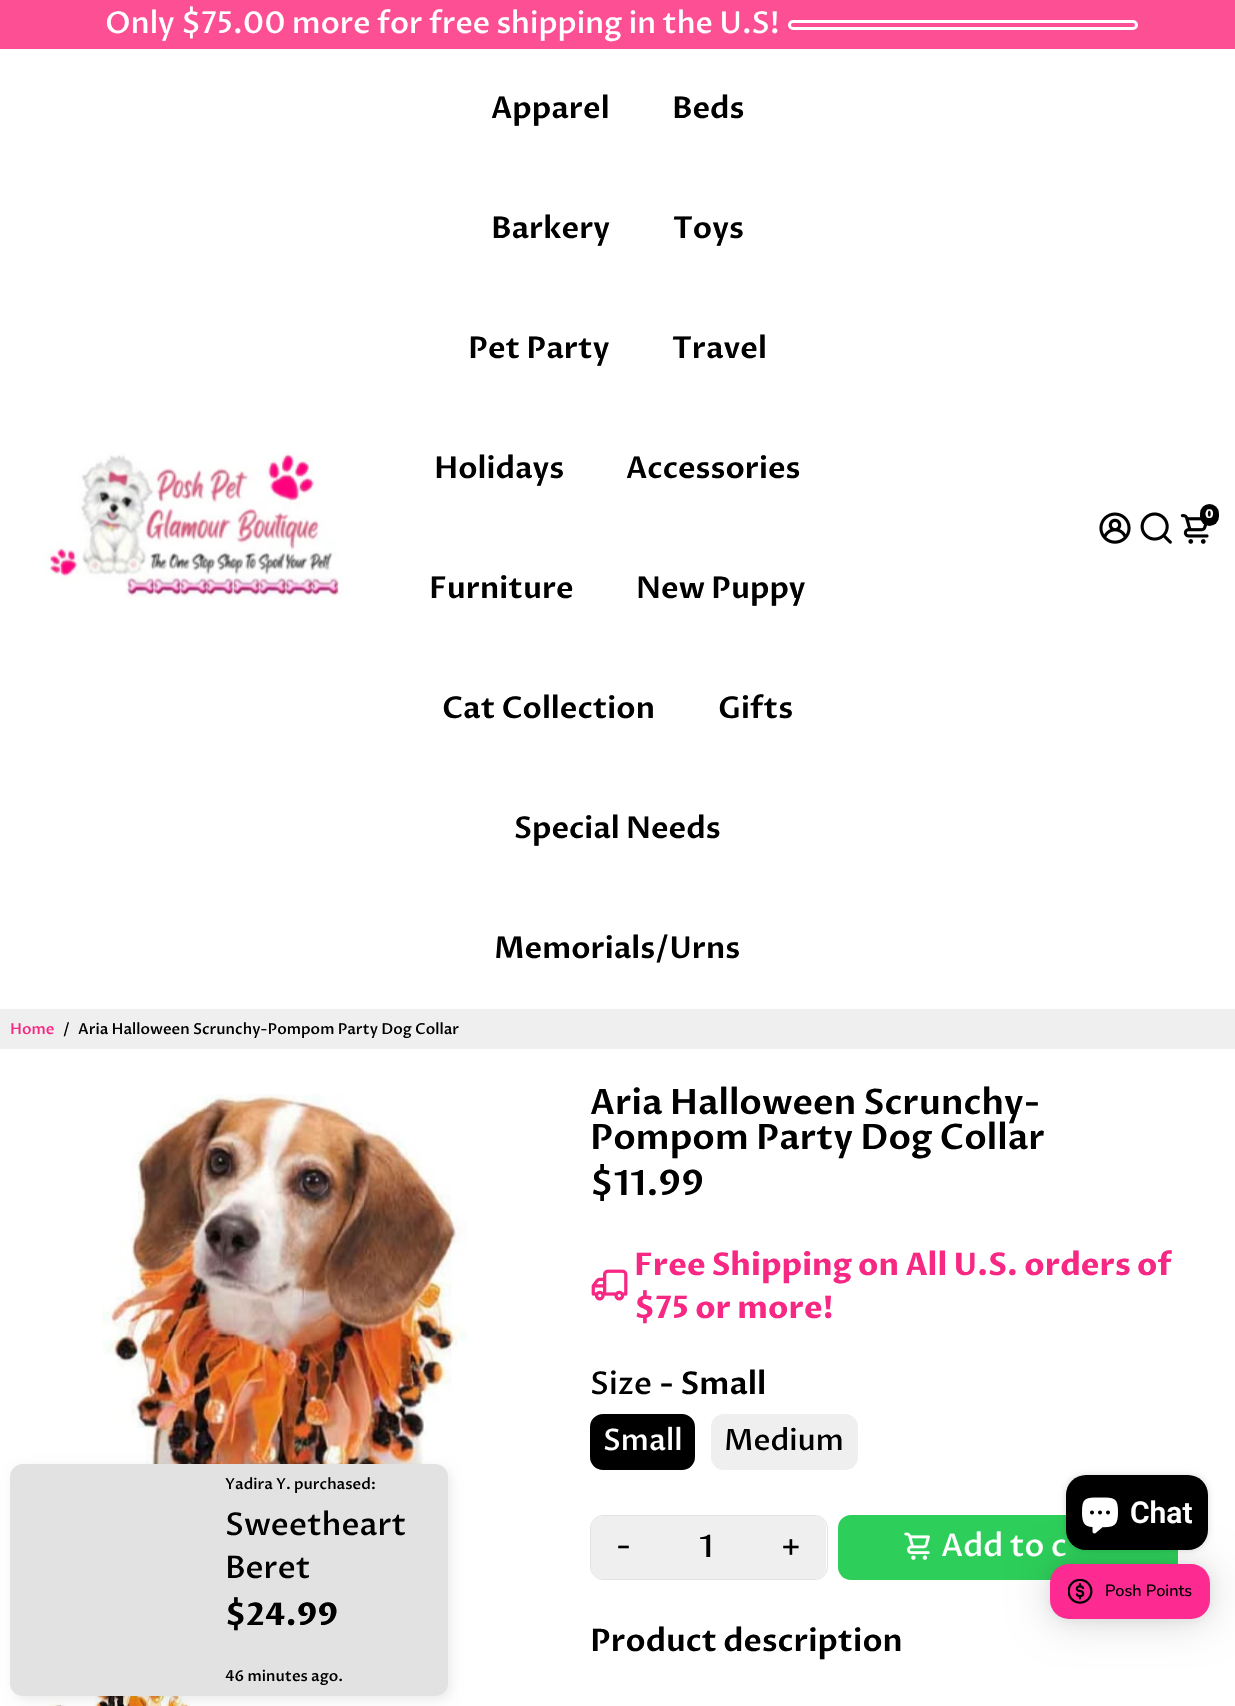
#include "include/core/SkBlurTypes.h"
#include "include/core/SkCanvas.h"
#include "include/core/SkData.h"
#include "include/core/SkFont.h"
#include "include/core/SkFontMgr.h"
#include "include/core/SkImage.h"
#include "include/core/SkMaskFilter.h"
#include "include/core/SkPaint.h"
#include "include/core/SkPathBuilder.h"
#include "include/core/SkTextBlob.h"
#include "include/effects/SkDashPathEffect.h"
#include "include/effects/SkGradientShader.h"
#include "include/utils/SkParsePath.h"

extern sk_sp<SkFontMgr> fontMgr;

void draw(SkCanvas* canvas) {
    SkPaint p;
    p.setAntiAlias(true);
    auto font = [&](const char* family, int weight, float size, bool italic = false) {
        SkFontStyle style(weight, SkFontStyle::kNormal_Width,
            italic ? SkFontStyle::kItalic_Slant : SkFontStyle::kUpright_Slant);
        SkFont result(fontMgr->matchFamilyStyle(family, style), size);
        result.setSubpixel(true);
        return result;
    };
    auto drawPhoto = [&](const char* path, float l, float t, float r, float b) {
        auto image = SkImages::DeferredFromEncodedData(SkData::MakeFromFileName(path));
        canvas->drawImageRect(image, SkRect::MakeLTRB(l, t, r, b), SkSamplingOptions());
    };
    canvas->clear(0xFFFFFFFF);
    p.setColor(0xFFFC4F94);
    canvas->drawRect(SkRect::MakeLTRB(0, 0, 1235, 49), p);
    auto font1 = font("Proza Libre", 500, 30);
    p.setColor(0xFFFFFFFF);
    canvas->drawString("Only $75.00 more for free shipping in the U.S!", 105, 33, font1, p);
    p.setStyle(SkPaint::kStroke_Style);
    p.setStrokeWidth(3);
    canvas->drawRoundRect(SkRect::MakeLTRB(789.5f, 21.5f, 1136.5f, 28.5f), 3.5f, 3.5f, p);
    drawPhoto("media/1.png", 44, 452, 342, 599);
    auto font2 = font("Proza Libre", 600, 30);
    p.setStyle(SkPaint::kFill_Style);
    p.setColor(0xFF000000);
    {
        const struct { const char* s; float x, y; } items[] = {
            {"Apparel", 491, 118},
            {"Beds", 672, 118},
            {"Barkery", 491, 238},
            {"Toys", 673, 238},
            {"Pet Party", 468, 358},
            {"Travel", 672, 358},
            {"Holidays", 434, 478},
            {"Accessories", 626, 478},
            {"Furniture", 429, 598},
            {"New Puppy", 636, 598},
            {"Cat Collection", 442, 718},
            {"Gifts", 718, 718},
            {"Special Needs", 514, 838},
            {"Memorials/Urns", 494, 958},
        };
        for (auto [s, x, y] : items) {
            canvas->drawString(s, x, y, font2, p);
        }
    }
    drawPhoto("media/2.png", 1099, 512, 1131, 544);
    drawPhoto("media/3.png", 1140, 512, 1172, 544);
    drawPhoto("media/4.png", 1180, 514, 1209, 544);
    canvas->drawRoundRect(SkRect::MakeLTRB(1200, 504, 1219, 526), 9.5f, 9.5f, p);
    auto font3 = font("Proza Libre", 700, 12);
    p.setColor(0xFFFFFFFF);
    canvas->drawString("0", 1205, 518, font3, p);
    p.setColor(0xFFEFEFEF);
    canvas->drawRect(SkRect::MakeLTRB(0, 1009, 1235, 1049), p);
    auto font4 = font("Proza Libre", 500, 15);
    p.setColor(0xFFF72784);
    canvas->drawString("Home", 10, 1034, font4, p);
    p.setColor(0xFF000000);
    canvas->drawString("/", 63, 1034, font4, p);
    canvas->drawString("Aria Halloween Scrunchy-Pompom Party Dog Collar", 78, 1034, font4, p);
    drawPhoto("media/5.png", 102, 1094, 468, 1624);
    drawPhoto("media/6.png", 48, 1696, 192, 1706);
    auto font5 = font("Proza Libre", 600, 35);
    {
        const struct { const char* s; float x, y; } items[] = {
            {"Aria Halloween Scrunchy-", 590, 1114},
            {"Pompom Party Dog Collar", 590, 1149},
            {"$11.99", 590, 1195},
        };
        for (auto [s, x, y] : items) {
            canvas->drawString(s, x, y, font5, p);
        }
    }
    drawPhoto("media/7.png", 591, 1269, 628, 1301);
    auto font6 = font("Proza Libre", 700, 31.25f);
    p.setColor(0xFFF72784);
    canvas->drawString("Free Shipping on All U.S. orders of", 634, 1275, font6, p);
    canvas->drawString("$75 or more!", 634, 1318, font6, p);
    auto font7 = font("Proza Libre", 500, 31.25f);
    p.setColor(0xFF000000);
    canvas->drawString("Size", 590, 1394, font7, p);
    auto font8 = font("Proza Libre", 600, 31.25f);
    canvas->drawString("- Small", 659, 1394, font8, p);
    canvas->drawRoundRect(SkRect::MakeLTRB(591.5f, 1415.5f, 693.5f, 1468.5f), 11.5f, 11.5f, p);
    p.setStyle(SkPaint::kStroke_Style);
    canvas->drawRoundRect(SkRect::MakeLTRB(591.5f, 1415.5f, 693.5f, 1468.5f), 11.5f, 11.5f, p);
    auto font9 = font("Proza Libre", 500, 29.5f);
    p.setStyle(SkPaint::kFill_Style);
    p.setColor(0xFFFFFFFF);
    canvas->drawString("Small", 603, 1450, font9, p);
    p.setColor(0xFFEFEFEF);
    canvas->drawRoundRect(SkRect::MakeLTRB(711, 1414, 858, 1470), 13, 13, p);
    p.setColor(0xFF000000);
    canvas->drawString("Medium", 724, 1450, font9, p);
    p.setStyle(SkPaint::kStroke_Style);
    p.setStrokeWidth(1);
    p.setColor(0xFFE2E2E2);
    canvas->drawRoundRect(SkRect::MakeLTRB(590.5f, 1515.5f, 827.5f, 1579.5f), 12.5f, 12.5f, p);
    p.setStyle(SkPaint::kFill_Style);
    p.setColor(0xFFEFEFEF);
    canvas->drawPath(SkPathBuilder().moveTo(602, 1516).lineTo(656, 1516).lineTo(656, 1579).lineTo(602, 1579).cubicTo(596, 1579, 591, 1574, 591, 1568).lineTo(591, 1527).cubicTo(591, 1521, 596, 1516, 602, 1516).close().detach(), p);
    p.setColor(0xFF000000);
    canvas->drawString("-", 616, 1556, font7, p);
    p.setColor(0xFFEFEFEF);
    canvas->drawRect(SkRect::MakeLTRB(656, 1516, 756, 1579), p);
    p.setColor(0xFF000000);
    canvas->drawString("1", 699, 1557, font7, p);
    p.setColor(0xFFEFEFEF);
    canvas->drawPath(SkPathBuilder().moveTo(756, 1516).lineTo(815, 1516).cubicTo(821, 1516, 826, 1521, 826, 1527).lineTo(826, 1568).cubicTo(826, 1574, 821, 1579, 815, 1579).lineTo(756, 1579).close().detach(), p);
    p.setColor(0xFF000000);
    canvas->drawString("+", 781, 1556, font7, p);
    p.setColor(0xFF2DCE5A);
    canvas->drawRoundRect(SkRect::MakeLTRB(838, 1515, 1178, 1580), 13, 13, p);
    drawPhoto("media/8.png", 904, 1532, 930, 1560);
    p.setColor(0xFFFFFFFF);
    canvas->drawString("Add to c", 941, 1556, font7, p);
    p.setColor(0xFF000000);
    canvas->drawString("Product description", 590, 1651, font8, p);
    p.setColor(0x14000000);
    p.setMaskFilter(SkMaskFilter::MakeBlur(kNormal_SkBlurStyle, 6));
    canvas->drawRoundRect(SkRect::MakeLTRB(14, 1468, 451, 1700), 13, 13, p);
    p.setMaskFilter(nullptr);
    p.setColor(0xFFE2E2E2);
    canvas->drawRoundRect(SkRect::MakeLTRB(10, 1464, 448, 1696), 13, 13, p);
    p.setColor(0xFF000000);
    canvas->drawString("Yadira Y. purchased:", 225, 1489, font4, p);
    canvas->drawString("Sweetheart", 225, 1535, font7, p);
    canvas->drawString("Beret", 225, 1578, font7, p);
    canvas->drawString("$24.99", 225, 1625, font6, p);
    canvas->drawString("46 minutes ago.", 225, 1681, font4, p);
    p.setColor(0x26000000);
    p.setMaskFilter(SkMaskFilter::MakeBlur(kNormal_SkBlurStyle, 3));
    canvas->drawRoundRect(SkRect::MakeLTRB(1066, 1475, 1208, 1550), 20, 20, p);
    p.setMaskFilter(nullptr);
    p.setColor(0x29000000);
    p.setMaskFilter(SkMaskFilter::MakeBlur(kNormal_SkBlurStyle, 20));
    canvas->drawRoundRect(SkRect::MakeLTRB(1050, 1566, 1210, 1621), 19, 19, p);
    p.setMaskFilter(nullptr);
    p.setColor(0xFF000000);
    canvas->drawRoundRect(SkRect::MakeLTRB(1066, 1475, 1208, 1550), 20, 20, p);
    drawPhoto("media/9.png", 1082, 1497, 1118, 1534);
    auto font10 = font("Roboto", 600, 30);
    p.setColor(0xFFFFFFFF);
    canvas->drawString("Chat", 1130, 1523, font10, p);
    p.setColor(0x0F000000);
    p.setMaskFilter(SkMaskFilter::MakeBlur(kNormal_SkBlurStyle, 4));
    canvas->drawRoundRect(SkRect::MakeLTRB(1050, 1565, 1210, 1620), 19, 19, p);
    p.setMaskFilter(nullptr);
    p.setColor(0xFFFD2A92);
    canvas->drawRoundRect(SkRect::MakeLTRB(1050, 1564, 1210, 1619), 19, 19, p);
    drawPhoto("media/10.png", 1068, 1579, 1093, 1604);
    auto font11 = font("Nunito", 500, 16.25f);
    p.setColor(0xFF000000);
    canvas->drawString("Posh Points", 1105, 1596, font11, p);
}
